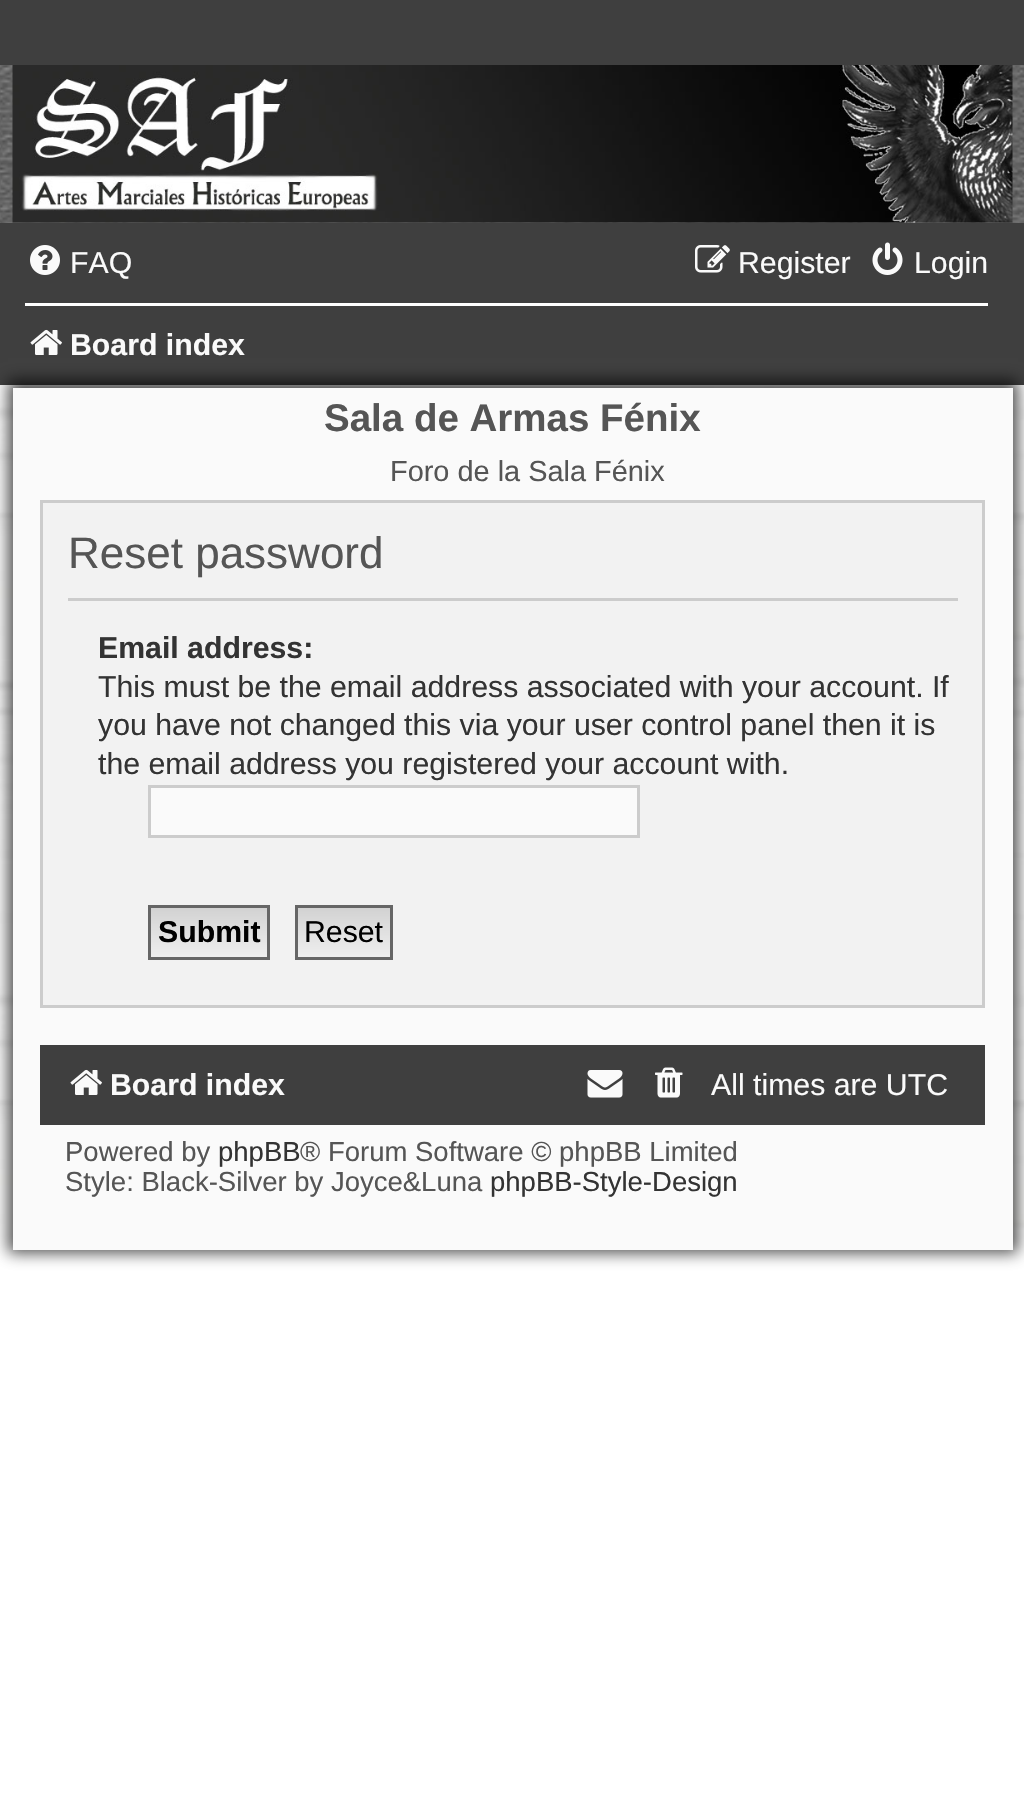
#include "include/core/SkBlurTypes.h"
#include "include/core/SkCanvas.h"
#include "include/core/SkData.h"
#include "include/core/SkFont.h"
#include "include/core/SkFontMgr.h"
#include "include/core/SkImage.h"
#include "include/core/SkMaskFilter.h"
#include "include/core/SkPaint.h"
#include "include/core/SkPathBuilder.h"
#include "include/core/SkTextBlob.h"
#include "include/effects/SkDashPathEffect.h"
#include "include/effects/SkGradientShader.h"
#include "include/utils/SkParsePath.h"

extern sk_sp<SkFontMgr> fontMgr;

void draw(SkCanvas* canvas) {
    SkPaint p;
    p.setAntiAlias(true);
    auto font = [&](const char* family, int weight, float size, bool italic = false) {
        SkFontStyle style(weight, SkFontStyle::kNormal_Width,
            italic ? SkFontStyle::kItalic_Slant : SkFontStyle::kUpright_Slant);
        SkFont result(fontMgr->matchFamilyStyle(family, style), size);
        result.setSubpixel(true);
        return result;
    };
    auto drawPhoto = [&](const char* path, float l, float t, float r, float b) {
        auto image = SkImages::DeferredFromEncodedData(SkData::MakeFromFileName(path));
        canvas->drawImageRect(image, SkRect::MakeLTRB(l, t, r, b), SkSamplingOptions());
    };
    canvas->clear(0xFFFFFFFF);
    drawPhoto("media/1.png", 0, 385, 1024, 1230);
    drawPhoto("media/2.png", 0, 65, 1024, 223);
    p.setColor(0xFF3F3F3F);
    canvas->drawRect(SkRect::MakeLTRB(0, 0, 1024, 65), p);
    drawPhoto("media/3.png", 12, 65, 1013, 223);
    canvas->drawRect(SkRect::MakeLTRB(0, 223, 1024, 385), p);
    drawPhoto("media/4.png", 30, 245, 60, 275);
    auto font1 = font("Liberation Sans", 400, 30.25f);
    p.setColor(0xFFFAFAFA);
    canvas->drawString("FAQ", 70, 273, font1, p);
    drawPhoto("media/5.png", 695, 245, 730, 273);
    canvas->drawString("Register", 738, 273, font1, p);
    drawPhoto("media/6.png", 872, 242, 903, 275);
    canvas->drawString("Login", 914, 273, font1, p);
    p.setColor(0xFFFFFFFF);
    canvas->drawRect(SkRect::MakeLTRB(25, 303, 988, 306), p);
    drawPhoto("media/7.png", 30, 329, 62, 355);
    auto font2 = font("Liberation Sans", 700, 30.25f);
    p.setColor(0xFFFAFAFA);
    canvas->drawString("Board index", 70, 355, font2, p);
    p.setColor(0xB3020202);
    p.setMaskFilter(SkMaskFilter::MakeBlur(kNormal_SkBlurStyle, 7.5f));
    canvas->drawRect(SkRect::MakeLTRB(8, 380, 1018, 1253), p);
    p.setMaskFilter(nullptr);
    p.setColor(0xFFFAFAFA);
    canvas->drawRect(SkRect::MakeLTRB(13, 388, 1013, 1250), p);
    auto font3 = font("Liberation Sans", 700, 38.5f);
    p.setColor(0xFF555555);
    canvas->drawString("Sala de Armas Fénix", 324, 431, font3, p);
    auto font4 = font("Liberation Sans", 400, 28.9f);
    canvas->drawString("Foro de la Sala Fénix", 390, 481, font4, p);
    p.setColor(0xFFF2F2F2);
    canvas->drawRect(SkRect::MakeLTRB(41.5f, 501.5f, 983.5f, 1006.5f), p);
    p.setStyle(SkPaint::kStroke_Style);
    p.setStrokeWidth(3);
    p.setColor(0xFFCCCCCC);
    canvas->drawRect(SkRect::MakeLTRB(41.5f, 501.5f, 983.5f, 1006.5f), p);
    p.setStyle(SkPaint::kFill_Style);
    canvas->drawRect(SkRect::MakeLTRB(68, 598, 958, 601), p);
    auto font5 = font("Liberation Sans", 400, 44);
    p.setColor(0xFF555555);
    canvas->drawString("Reset password", 68, 568, font5, p);
    p.setColor(0xFF333333);
    canvas->drawString("Email address:", 98, 658, font2, p);
    {
        const struct { const char* s; float x, y; } items[] = {
            {"This must be the email address associated with your account. If", 98, 697},
            {"you have not changed this via your user control panel then it is", 98, 735},
            {"the email address you registered your account with.", 98, 774},
        };
        for (auto [s, x, y] : items) {
            canvas->drawString(s, x, y, font1, p);
        }
    }
    p.setColor(0xFFFAFAFA);
    canvas->drawRect(SkRect::MakeLTRB(149.5f, 786.5f, 638.5f, 836.5f), p);
    p.setStyle(SkPaint::kStroke_Style);
    p.setColor(0xFFCCCCCC);
    canvas->drawRect(SkRect::MakeLTRB(149.5f, 786.5f, 638.5f, 836.5f), p);
    p.setStyle(SkPaint::kFill_Style);
    {
        const SkColor colors[] = {0xFFD2D2D2, 0xFFEFEFEF};
        const float stops[] = {0, 1};
        const SkPoint ends[] = {{209, 908}, {209, 958}};
        p.setShader(SkGradientShader::MakeLinear(ends, colors, stops, 2, SkTileMode::kClamp));
        p.setAlpha(255);
    }
    canvas->drawRect(SkRect::MakeLTRB(151, 908, 267, 957), p);
    p.setStyle(SkPaint::kStroke_Style);
    p.setShader(nullptr);
    p.setColor(0xFF666666);
    canvas->drawRect(SkRect::MakeLTRB(149.5f, 906.5f, 268.5f, 958.5f), p);
    p.setStyle(SkPaint::kFill_Style);
    p.setColor(0xFF000000);
    canvas->drawString("Submit", 158, 942, font2, p);
    {
        const SkColor colors[] = {0xFFD2D2D2, 0xFFEFEFEF};
        const float stops[] = {0, 1};
        const SkPoint ends[] = {{344, 908}, {344, 958}};
        p.setShader(SkGradientShader::MakeLinear(ends, colors, stops, 2, SkTileMode::kClamp));
        p.setAlpha(255);
    }
    canvas->drawRect(SkRect::MakeLTRB(298, 908, 390, 957), p);
    p.setStyle(SkPaint::kStroke_Style);
    p.setShader(nullptr);
    p.setColor(0xFF666666);
    canvas->drawRect(SkRect::MakeLTRB(296.5f, 906.5f, 391.5f, 958.5f), p);
    p.setStyle(SkPaint::kFill_Style);
    p.setColor(0xFF000000);
    canvas->drawString("Reset", 304, 942, font1, p);
    p.setColor(0xFF3F3F3F);
    canvas->drawRect(SkRect::MakeLTRB(40, 1045, 985, 1125), p);
    drawPhoto("media/7.png", 70, 1069, 102, 1095);
    p.setColor(0xFFFAFAFA);
    canvas->drawString("Board index", 110, 1095, font2, p);
    drawPhoto("media/8.png", 587, 1070, 623, 1098);
    drawPhoto("media/9.png", 655, 1067, 683, 1098);
    canvas->drawString("All times are UTC", 711, 1095, font1, p);
    auto font6 = font("Liberation Sans", 400, 27.5f);
    p.setColor(0xFF555555);
    canvas->drawString("Powered by", 65, 1161, font6, p);
    p.setColor(0xFF333333);
    canvas->drawString("phpBB", 218, 1161, font6, p);
    p.setColor(0xFF555555);
    canvas->drawString("® Forum Software © phpBB Limited", 300, 1161, font6, p);
    canvas->drawString("Style: Black-Silver by Joyce&Luna", 65, 1191, font6, p);
    p.setColor(0xFF333333);
    canvas->drawString("phpBB-Style-Design", 490, 1191, font6, p);
}
